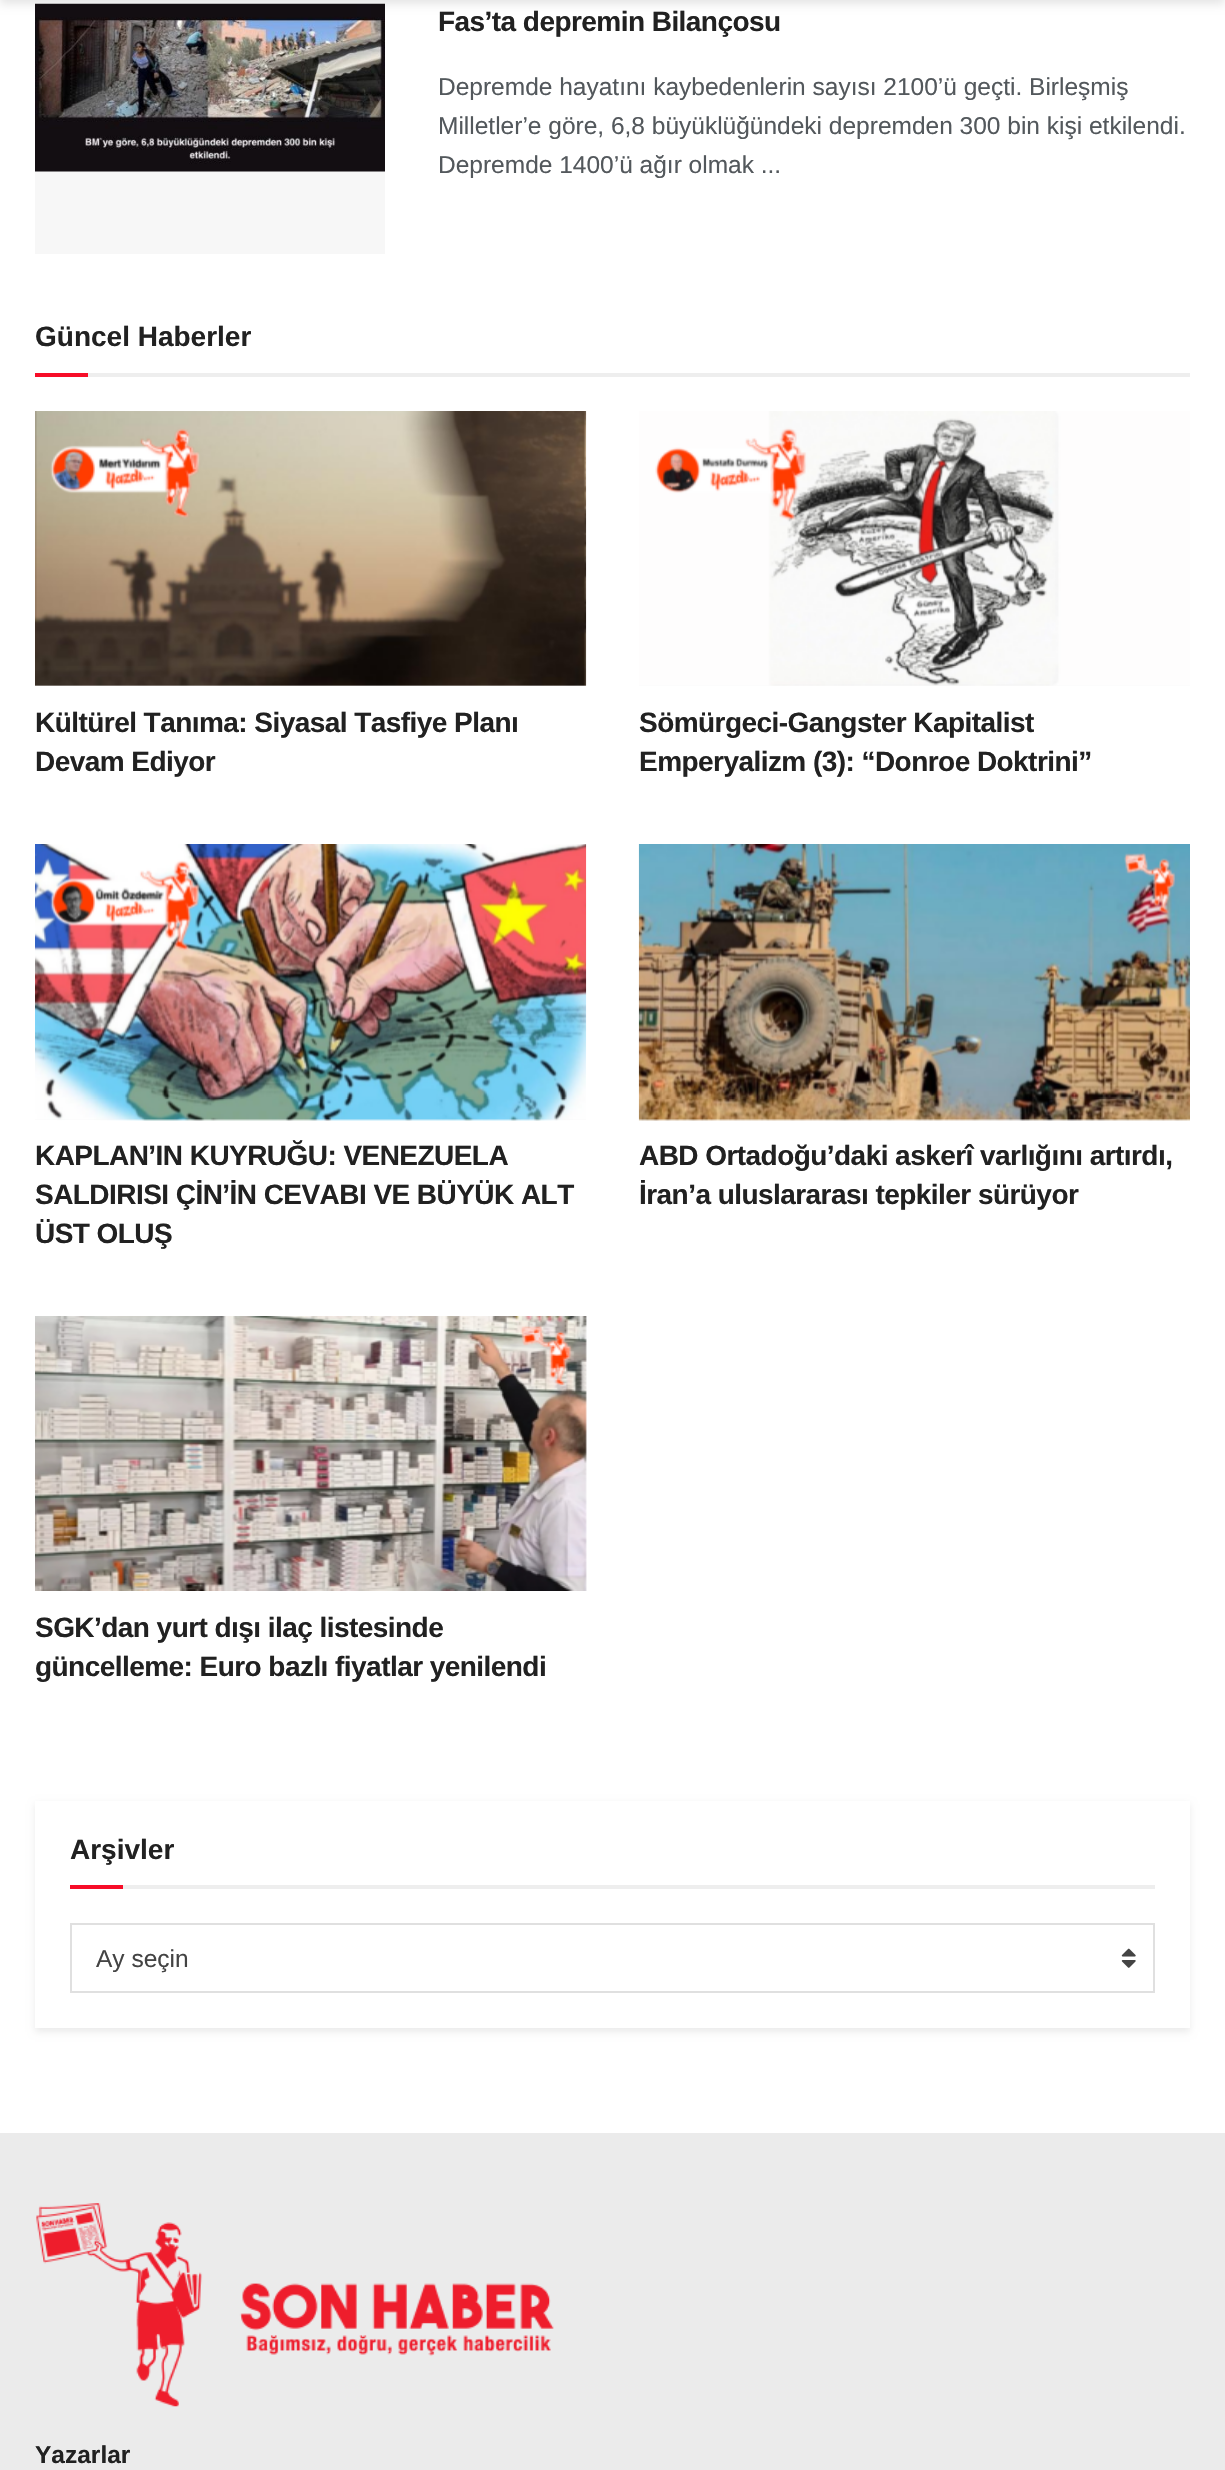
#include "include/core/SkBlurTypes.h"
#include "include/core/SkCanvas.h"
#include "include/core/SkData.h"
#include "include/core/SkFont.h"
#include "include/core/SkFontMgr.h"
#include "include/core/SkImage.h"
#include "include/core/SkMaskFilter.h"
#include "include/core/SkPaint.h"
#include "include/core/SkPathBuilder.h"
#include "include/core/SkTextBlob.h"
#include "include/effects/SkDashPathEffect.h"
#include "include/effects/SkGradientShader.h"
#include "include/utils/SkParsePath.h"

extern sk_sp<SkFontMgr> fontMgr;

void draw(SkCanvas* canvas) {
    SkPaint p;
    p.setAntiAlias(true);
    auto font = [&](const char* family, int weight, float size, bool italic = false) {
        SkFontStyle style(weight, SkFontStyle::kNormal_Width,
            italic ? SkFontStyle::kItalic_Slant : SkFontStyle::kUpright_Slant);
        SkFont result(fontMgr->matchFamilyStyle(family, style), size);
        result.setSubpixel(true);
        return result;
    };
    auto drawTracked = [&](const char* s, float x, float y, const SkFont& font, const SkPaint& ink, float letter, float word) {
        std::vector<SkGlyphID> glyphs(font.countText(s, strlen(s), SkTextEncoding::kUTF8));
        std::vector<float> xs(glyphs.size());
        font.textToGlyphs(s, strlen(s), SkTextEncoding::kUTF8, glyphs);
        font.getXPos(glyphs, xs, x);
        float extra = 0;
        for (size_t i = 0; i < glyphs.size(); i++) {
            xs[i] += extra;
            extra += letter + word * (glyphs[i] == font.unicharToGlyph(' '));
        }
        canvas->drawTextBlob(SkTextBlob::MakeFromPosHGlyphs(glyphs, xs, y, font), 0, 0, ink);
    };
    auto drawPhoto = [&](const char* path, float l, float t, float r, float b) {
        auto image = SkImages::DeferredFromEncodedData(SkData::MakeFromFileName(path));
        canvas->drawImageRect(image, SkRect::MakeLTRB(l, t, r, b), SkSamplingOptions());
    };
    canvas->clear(0xFFFFFFFF);
    p.setColor(0xFFF7F7F7);
    canvas->drawRect(SkRect::MakeLTRB(35, 171, 385, 254), p);
    drawPhoto("media/1.png", 35, 3, 385, 172);
    p.setColor(0x1A000000);
    p.setMaskFilter(SkMaskFilter::MakeBlur(kNormal_SkBlurStyle, 5));
    canvas->drawRect(SkRect::MakeLTRB(0, -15, 1225, 4), p);
    p.setMaskFilter(nullptr);
    auto font1 = font("Liberation Sans", 700, 28);
    p.setColor(0xFF212121);
    drawTracked("Fas’ta depremin Bilançosu", 438, 31, font1, p, -0.55f, 0);
    auto font2 = font("Liberation Sans", 400, 24.5f);
    p.setColor(0xFF53585C);
    {
        const struct { const char* s; float x, y; } items[] = {
            {"Depremde hayatını kaybedenlerin sayısı 2100’ü geçti. Birleşmiş", 438, 95},
            {"Milletler’e göre, 6,8 büyüklüğündeki depremden 300 bin kişi etkilendi.", 438, 134},
            {"Depremde 1400’ü ağır olmak ...", 438, 173},
        };
        for (auto [s, x, y] : items) {
            canvas->drawString(s, x, y, font2, p);
        }
    }
    p.setColor(0xFFEEEEEE);
    canvas->drawRect(SkRect::MakeLTRB(88, 373, 1190, 377), p);
    p.setColor(0xFF212121);
    canvas->drawString("Güncel Haberler", 35, 346, font1, p);
    p.setColor(0xFFF70D28);
    canvas->drawRect(SkRect::MakeLTRB(35, 373, 88, 377), p);
    p.setColor(0xFFF7F7F7);
    canvas->drawRect(SkRect::MakeLTRB(35, 685, 586, 686), p);
    drawPhoto("media/2.png", 35, 411, 587, 686);
    p.setColor(0xFF212121);
    drawTracked("Kültürel Tanıma: Siyasal Tasfiye Planı", 35, 732, font1, p, -0.55f, 0);
    drawTracked("Devam Ediyor", 35, 771, font1, p, -0.55f, 0);
    p.setColor(0xFFF7F7F7);
    canvas->drawRect(SkRect::MakeLTRB(639, 685, 1190, 686), p);
    drawPhoto("media/3.png", 639, 411, 1190, 686);
    p.setColor(0xFF212121);
    drawTracked("Sömürgeci-Gangster Kapitalist", 639, 732, font1, p, -0.55f, 0);
    drawTracked("Emperyalizm (3): “Donroe Doktrini”", 639, 771, font1, p, -0.55f, 0);
    p.setColor(0xFFF7F7F7);
    canvas->drawRect(SkRect::MakeLTRB(35, 1119, 586, 1120), p);
    drawPhoto("media/4.png", 35, 844, 587, 1121);
    p.setColor(0xFF212121);
    {
        const struct { const char* s; float x, y; } items[] = {
            {"KAPLAN’IN KUYRUĞU: VENEZUELA", 35, 1165},
            {"SALDIRISI ÇİN’İN CEVABI VE BÜYÜK ALT", 35, 1204},
            {"ÜST OLUŞ", 35, 1243},
        };
        for (auto [s, x, y] : items) {
            drawTracked(s, x, y, font1, p, -0.55f, 0);
        }
    }
    p.setColor(0xFFF7F7F7);
    canvas->drawRect(SkRect::MakeLTRB(639, 1119, 1190, 1120), p);
    drawPhoto("media/5.png", 638, 844, 1190, 1121);
    p.setColor(0xFF212121);
    drawTracked("ABD Ortadoğu’daki askerî varlığını artırdı,", 639, 1165, font1, p, -0.55f, 0);
    drawTracked("İran’a uluslararası tepkiler sürüyor", 639, 1204, font1, p, -0.55f, 0);
    drawPhoto("media/6.png", 35, 1316, 587, 1591);
    drawTracked("SGK’dan yurt dışı ilaç listesinde", 35, 1637, font1, p, -0.55f, 0);
    drawTracked("güncelleme: Euro bazlı fiyatlar yenilendi", 35, 1676, font1, p, -0.55f, 0);
    canvas->save();
    canvas->clipPath(SkPathBuilder(SkPathFillType::kEvenOdd).moveTo(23, 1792).lineTo(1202, 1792).lineTo(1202, 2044).lineTo(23, 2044).close().moveTo(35, 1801).lineTo(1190, 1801).lineTo(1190, 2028).lineTo(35, 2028).close().detach(), true);
    p.setColor(0x14000000);
    p.setMaskFilter(SkMaskFilter::MakeBlur(kNormal_SkBlurStyle, 3.5f));
    canvas->drawRect(SkRect::MakeLTRB(35, 1804, 1190, 2032), p);
    p.setMaskFilter(nullptr);
    canvas->restore();
    p.setColor(0xFFEEEEEE);
    canvas->drawRect(SkRect::MakeLTRB(123, 1885, 1155, 1889), p);
    p.setColor(0xFF212121);
    canvas->drawString("Arşivler", 70, 1859, font1, p);
    p.setColor(0xFFF70D28);
    canvas->drawRect(SkRect::MakeLTRB(70, 1885, 123, 1889), p);
    p.setStyle(SkPaint::kStroke_Style);
    p.setStrokeWidth(2);
    p.setColor(0xFFE0E0E0);
    canvas->drawRect(SkRect::MakeLTRB(71, 1924, 1154, 1992), p);
    p.setStyle(SkPaint::kFill_Style);
    p.setColor(0xFF444444);
    canvas->drawString("Ay seçin", 96, 1967, font2, p);
    drawPhoto("media/7.png", 1121, 1948, 1136, 1968);
    p.setColor(0xFFEBEBEB);
    canvas->drawRect(SkRect::MakeLTRB(0, 2133, 1225, 2470), p);
    drawPhoto("media/8.png", 36, 2203, 554, 2407);
    auto font3 = font("Liberation Sans", 700, 24.5f);
    p.setColor(0xFF212121);
    canvas->drawString("Yazarlar", 35, 2463, font3, p);
}
